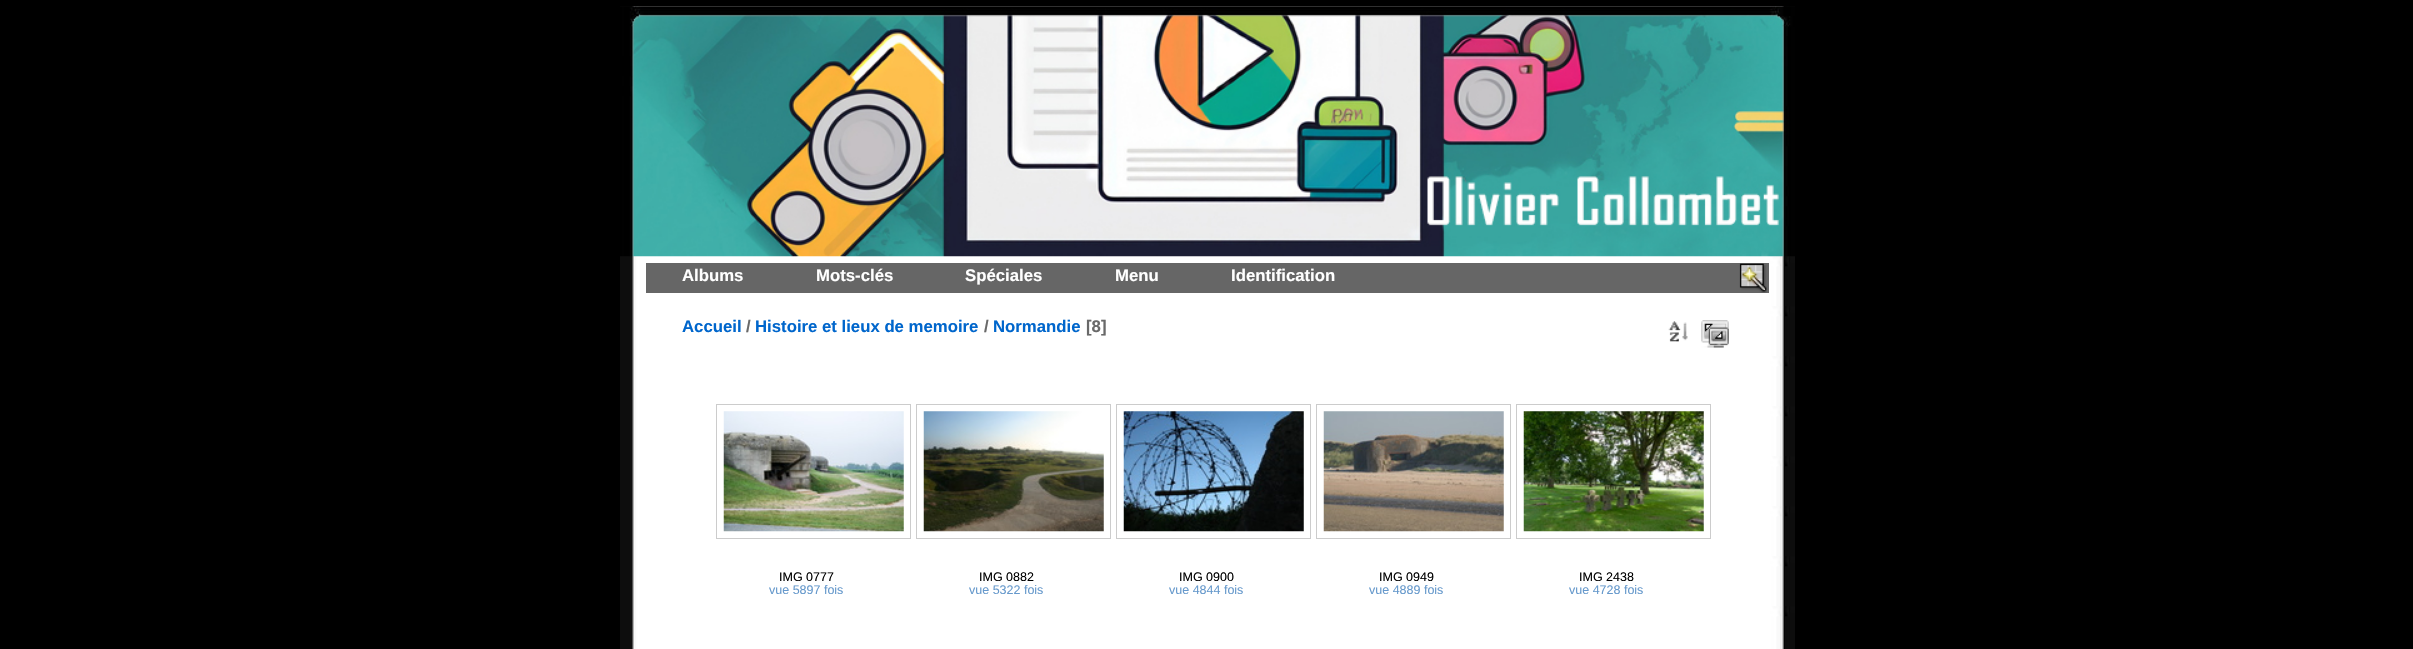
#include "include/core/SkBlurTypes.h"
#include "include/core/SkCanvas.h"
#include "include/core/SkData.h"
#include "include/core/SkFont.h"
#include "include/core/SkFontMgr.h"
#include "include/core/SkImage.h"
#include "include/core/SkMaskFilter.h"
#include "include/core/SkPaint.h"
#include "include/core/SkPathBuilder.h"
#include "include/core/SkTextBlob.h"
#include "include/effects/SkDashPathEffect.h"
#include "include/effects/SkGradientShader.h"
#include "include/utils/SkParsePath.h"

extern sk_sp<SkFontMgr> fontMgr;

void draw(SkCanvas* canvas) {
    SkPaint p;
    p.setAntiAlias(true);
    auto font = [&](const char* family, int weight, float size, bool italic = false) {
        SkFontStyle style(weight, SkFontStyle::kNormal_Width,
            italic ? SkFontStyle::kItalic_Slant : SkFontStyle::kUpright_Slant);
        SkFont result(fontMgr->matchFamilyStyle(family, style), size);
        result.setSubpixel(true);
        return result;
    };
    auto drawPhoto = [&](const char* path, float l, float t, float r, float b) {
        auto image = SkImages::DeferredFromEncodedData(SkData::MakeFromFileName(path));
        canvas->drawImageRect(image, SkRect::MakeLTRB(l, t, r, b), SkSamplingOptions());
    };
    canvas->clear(0xFF000000);
    drawPhoto("media/1.png", 620, 6, 1795, 649);
    drawPhoto("media/2.png", 620, 6, 1795, 257);
    p.setColor(0xFF666666);
    canvas->drawRect(SkRect::MakeLTRB(646, 263, 1769, 293), p);
    auto font1 = font("Liberation Sans", 700, 16.75f);
    p.setColor(0xFFFFFFFF);
    {
        const struct { const char* s; float x, y; } items[] = {
            {"Albums", 682, 281},
            {"Mots-clés", 816, 281},
            {"Spéciales", 965, 281},
            {"Menu", 1115, 281},
            {"Identification", 1231, 281},
        };
        for (auto [s, x, y] : items) {
            canvas->drawString(s, x, y, font1, p);
        }
    }
    drawPhoto("media/3.png", 1739, 263, 1767, 293);
    p.setColor(0xFF0066CC);
    canvas->drawString("Accueil", 682, 332, font1, p);
    p.setColor(0xFF696969);
    canvas->drawString("/", 746, 332, font1, p);
    p.setColor(0xFF0066CC);
    canvas->drawString("Histoire et lieux de memoire", 755, 332, font1, p);
    p.setColor(0xFF696969);
    canvas->drawString("/", 984, 332, font1, p);
    p.setColor(0xFF0066CC);
    canvas->drawString("Normandie", 993, 332, font1, p);
    p.setColor(0xFF696969);
    canvas->drawString("[8]", 1086, 332, font1, p);
    drawPhoto("media/4.png", 1668, 321, 1688, 342);
    drawPhoto("media/5.png", 1701, 320, 1729, 348);
    p.setStyle(SkPaint::kStroke_Style);
    p.setStrokeWidth(1);
    p.setColor(0xFFCCCCCC);
    canvas->drawRect(SkRect::MakeLTRB(716.5f, 404.5f, 910.5f, 538.5f), p);
    drawPhoto("media/6.png", 723, 411, 904, 532);
    auto font2 = font("Liberation Sans", 400, 12.5f);
    p.setStyle(SkPaint::kFill_Style);
    p.setColor(0xFF000000);
    canvas->drawString("IMG 0777", 779, 581, font2, p);
    p.setColor(0xFF6699CC);
    canvas->drawString("vue 5897 fois", 769, 594, font2, p);
    p.setStyle(SkPaint::kStroke_Style);
    p.setColor(0xFFCCCCCC);
    canvas->drawRect(SkRect::MakeLTRB(916.5f, 404.5f, 1110.5f, 538.5f), p);
    drawPhoto("media/7.png", 923, 411, 1104, 532);
    p.setStyle(SkPaint::kFill_Style);
    p.setColor(0xFF000000);
    canvas->drawString("IMG 0882", 979, 581, font2, p);
    p.setColor(0xFF6699CC);
    canvas->drawString("vue 5322 fois", 969, 594, font2, p);
    p.setStyle(SkPaint::kStroke_Style);
    p.setColor(0xFFCCCCCC);
    canvas->drawRect(SkRect::MakeLTRB(1116.5f, 404.5f, 1310.5f, 538.5f), p);
    drawPhoto("media/8.png", 1123, 411, 1304, 532);
    p.setStyle(SkPaint::kFill_Style);
    p.setColor(0xFF000000);
    canvas->drawString("IMG 0900", 1179, 581, font2, p);
    p.setColor(0xFF6699CC);
    canvas->drawString("vue 4844 fois", 1169, 594, font2, p);
    p.setStyle(SkPaint::kStroke_Style);
    p.setColor(0xFFCCCCCC);
    canvas->drawRect(SkRect::MakeLTRB(1316.5f, 404.5f, 1510.5f, 538.5f), p);
    drawPhoto("media/9.png", 1323, 411, 1504, 532);
    p.setStyle(SkPaint::kFill_Style);
    p.setColor(0xFF000000);
    canvas->drawString("IMG 0949", 1379, 581, font2, p);
    p.setColor(0xFF6699CC);
    canvas->drawString("vue 4889 fois", 1369, 594, font2, p);
    p.setStyle(SkPaint::kStroke_Style);
    p.setColor(0xFFCCCCCC);
    canvas->drawRect(SkRect::MakeLTRB(1516.5f, 404.5f, 1710.5f, 538.5f), p);
    drawPhoto("media/10.png", 1523, 411, 1704, 532);
    p.setStyle(SkPaint::kFill_Style);
    p.setColor(0xFF000000);
    canvas->drawString("IMG 2438", 1579, 581, font2, p);
    p.setColor(0xFF6699CC);
    canvas->drawString("vue 4728 fois", 1569, 594, font2, p);
}
